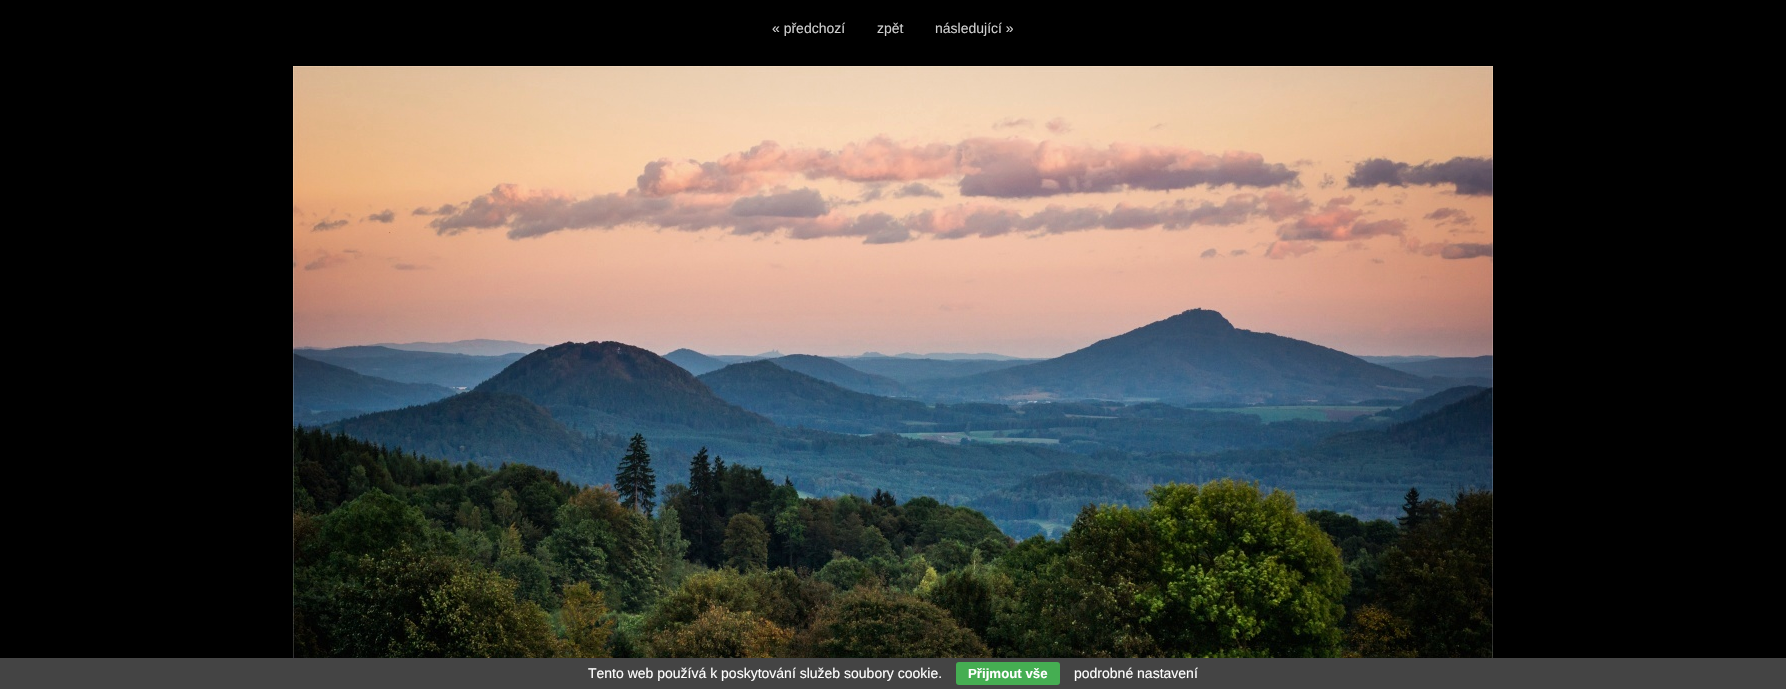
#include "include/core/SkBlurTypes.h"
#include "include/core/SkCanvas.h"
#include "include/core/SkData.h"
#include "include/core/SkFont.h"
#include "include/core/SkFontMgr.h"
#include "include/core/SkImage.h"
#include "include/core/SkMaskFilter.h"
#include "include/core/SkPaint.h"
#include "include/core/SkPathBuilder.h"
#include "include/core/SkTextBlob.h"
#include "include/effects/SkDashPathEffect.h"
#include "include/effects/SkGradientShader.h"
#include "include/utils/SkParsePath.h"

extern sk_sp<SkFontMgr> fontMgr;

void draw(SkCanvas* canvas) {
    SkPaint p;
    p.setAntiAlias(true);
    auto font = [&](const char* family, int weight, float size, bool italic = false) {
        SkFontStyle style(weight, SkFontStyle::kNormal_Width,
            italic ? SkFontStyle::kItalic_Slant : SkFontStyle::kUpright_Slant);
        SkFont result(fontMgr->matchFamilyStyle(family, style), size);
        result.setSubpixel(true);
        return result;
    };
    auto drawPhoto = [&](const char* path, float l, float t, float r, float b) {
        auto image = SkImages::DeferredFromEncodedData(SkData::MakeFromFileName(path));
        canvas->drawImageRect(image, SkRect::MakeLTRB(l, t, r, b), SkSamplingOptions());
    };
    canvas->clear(0xFF000000);
    auto font1 = font("Liberation Sans", 400, 14);
    p.setColor(0xFFCFCFCF);
    {
        const struct { const char* s; float x, y; } items[] = {
            {"« předchozí", 772, 33},
            {"zpět", 877, 33},
            {"následující »", 935, 33},
        };
        for (auto [s, x, y] : items) {
            canvas->drawString(s, x, y, font1, p);
        }
    }
    drawPhoto("media/1.png", 293, 66, 1493, 658);
    p.setColor(0xFF444444);
    canvas->drawRect(SkRect::MakeLTRB(0, 658, 1786, 689), p);
    p.setColor(0xFFFFFFFF);
    canvas->drawString("Tento web používá k poskytování služeb soubory cookie.", 588, 678, font1, p);
    p.setColor(0xFF45AE52);
    canvas->drawRoundRect(SkRect::MakeLTRB(956, 662, 1060, 685), 3, 3, p);
    auto font2 = font("Liberation Sans", 700, 13.25f);
    p.setColor(0xFFFFFFFF);
    canvas->drawString("Přijmout vše", 968, 678, font2, p);
    canvas->drawString("podrobné nastavení", 1074, 678, font1, p);
}
